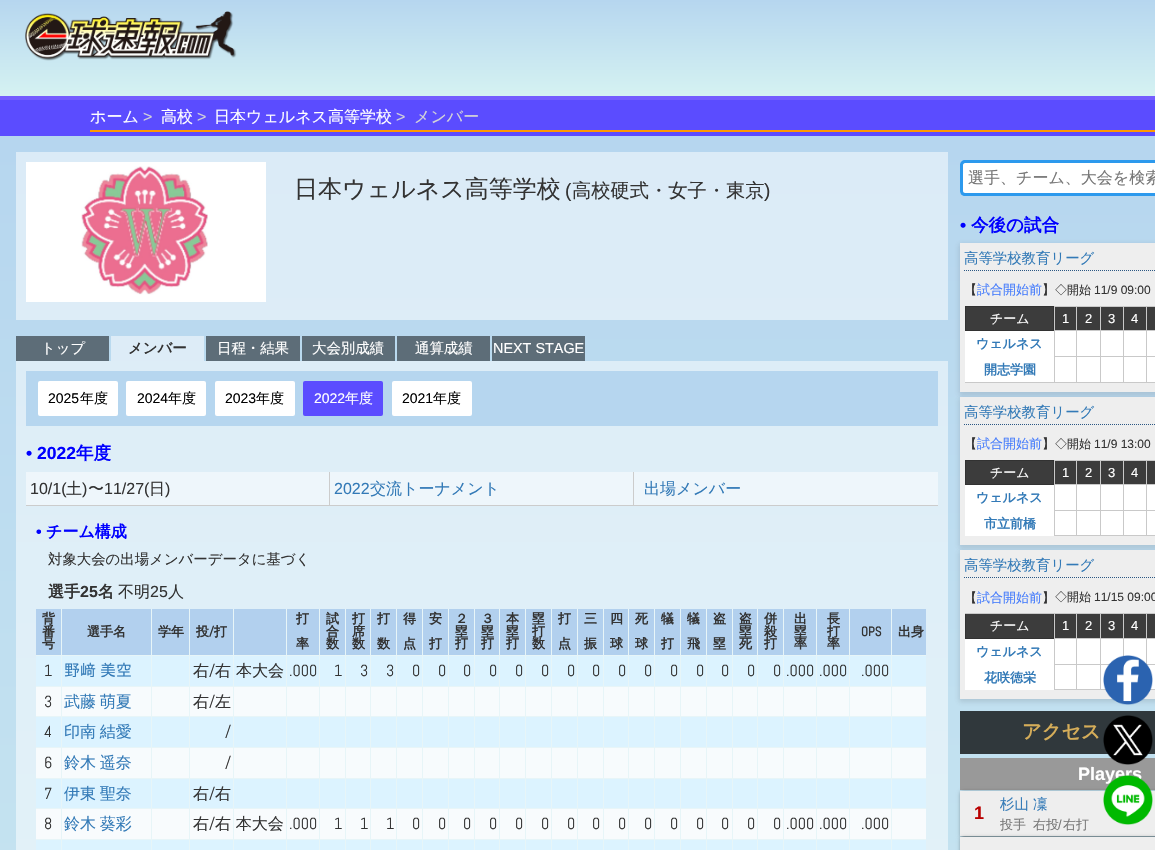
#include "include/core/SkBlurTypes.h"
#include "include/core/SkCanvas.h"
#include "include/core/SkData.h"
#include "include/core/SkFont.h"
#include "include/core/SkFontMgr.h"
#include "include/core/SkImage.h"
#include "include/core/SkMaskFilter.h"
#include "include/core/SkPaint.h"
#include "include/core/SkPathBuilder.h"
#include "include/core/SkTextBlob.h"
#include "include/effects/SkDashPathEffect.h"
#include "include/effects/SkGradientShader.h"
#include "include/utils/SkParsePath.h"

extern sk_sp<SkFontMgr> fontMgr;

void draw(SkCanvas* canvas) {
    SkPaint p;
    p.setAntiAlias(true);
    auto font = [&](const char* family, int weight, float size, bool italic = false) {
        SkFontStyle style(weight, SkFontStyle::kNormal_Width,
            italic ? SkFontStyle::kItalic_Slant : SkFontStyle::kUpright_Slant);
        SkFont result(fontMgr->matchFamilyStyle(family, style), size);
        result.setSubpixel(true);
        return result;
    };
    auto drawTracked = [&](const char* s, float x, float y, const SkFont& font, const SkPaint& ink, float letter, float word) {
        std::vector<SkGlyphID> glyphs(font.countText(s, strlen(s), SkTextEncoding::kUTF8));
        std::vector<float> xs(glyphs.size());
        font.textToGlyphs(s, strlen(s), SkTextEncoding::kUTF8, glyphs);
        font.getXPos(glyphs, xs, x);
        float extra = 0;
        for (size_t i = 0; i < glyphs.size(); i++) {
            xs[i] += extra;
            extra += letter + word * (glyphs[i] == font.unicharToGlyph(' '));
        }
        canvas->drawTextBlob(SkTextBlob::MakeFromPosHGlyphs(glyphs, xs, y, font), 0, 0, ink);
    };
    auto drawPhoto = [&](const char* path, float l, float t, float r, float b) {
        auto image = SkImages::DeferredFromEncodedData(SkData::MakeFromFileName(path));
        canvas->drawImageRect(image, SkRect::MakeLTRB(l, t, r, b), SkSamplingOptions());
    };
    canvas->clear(0xFF5B4CFF);
    {
        const SkColor colors[] = {0xFFB6D6EF, 0xFFD5F2F2};
        const float stops[] = {0, 1};
        const SkPoint ends[] = {{640, 0}, {640, 96}};
        p.setShader(SkGradientShader::MakeLinear(ends, colors, stops, 2, SkTileMode::kClamp));
        p.setAlpha(255);
    }
    canvas->drawRect(SkRect::MakeLTRB(0, 0, 1155, 96), p);
    p.setShader(nullptr);
    p.setColor(0xFF745DFF);
    canvas->drawRect(SkRect::MakeLTRB(0, 96, 1155, 100), p);
    drawPhoto("media/1.png", 25, 11, 237, 61);
    p.setColor(0xFFFF9900);
    canvas->drawRect(SkRect::MakeLTRB(90, 130, 1155, 132), p);
    auto font1 = font("WenQuanYi Zen Hei", 500, 16);
    p.setColor(0xFFFFFFFF);
    canvas->drawString("ホーム", 90, 122, font1, p);
    auto font2 = font("Liberation Sans", 400, 16);
    p.setColor(0xFFD3D3D8);
    canvas->drawString(">", 143, 122, font2, p);
    p.setColor(0xFFFFFFFF);
    canvas->drawString("高校", 161, 122, font1, p);
    p.setColor(0xFFD3D3D8);
    canvas->drawString(">", 197, 122, font2, p);
    p.setColor(0xFFFFFFFF);
    canvas->drawString("日本ウェルネス高等学校", 214, 122, font1, p);
    p.setColor(0xFFD3D3D8);
    canvas->drawString(">", 396, 122, font2, p);
    canvas->drawString("メンバー", 414, 122, font1, p);
    {
        const SkColor colors[] = {0xFFB6D6EF, 0xFFD5F2F2};
        const float stops[] = {0, 1};
        const SkPoint ends[] = {{640, 136}, {640, 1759}};
        p.setShader(SkGradientShader::MakeLinear(ends, colors, stops, 2, SkTileMode::kClamp));
        p.setAlpha(255);
    }
    canvas->drawRect(SkRect::MakeLTRB(0, 136, 1155, 850), p);
    {
        const SkColor colors[] = {0xFFDBEBF7, 0xFFEAF9F9};
        const float stops[] = {0, 1};
        const SkPoint ends[] = {{640, 136}, {640, 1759}};
        p.setShader(SkGradientShader::MakeLinear(ends, colors, stops, 2, SkTileMode::kClamp));
        p.setAlpha(255);
    }
    canvas->drawRect(SkRect::MakeLTRB(16, 361, 948, 850), p);
    canvas->drawRect(SkRect::MakeLTRB(16, 152, 948, 320), p);
    p.setShader(nullptr);
    p.setColor(0xFFFFFFFF);
    canvas->drawRect(SkRect::MakeLTRB(26, 162, 266, 302), p);
    drawPhoto("media/2.png", 81, 166, 208, 295);
    auto font3 = font("WenQuanYi Zen Hei", 500, 24);
    p.setColor(0xFF333333);
    canvas->drawString("日本ウェルネス高等学校", 294, 197, font3, p);
    auto font4 = font("Liberation Sans", 400, 19.25f);
    canvas->drawString("(", 565, 197, font4, p);
    auto font5 = font("WenQuanYi Zen Hei", 500, 19.25f);
    canvas->drawString("高校硬式・女子・東京", 572, 197, font5, p);
    canvas->drawString(")", 764, 197, font4, p);
    p.setColor(0xFF5D6D78);
    canvas->drawRect(SkRect::MakeLTRB(16, 336, 109, 361), p);
    auto font6 = font("WenQuanYi Zen Hei", 500, 14.4f);
    p.setColor(0xFFFFFFFF);
    canvas->drawString("トップ", 41, 353, font6, p);
    p.setColor(0xFFDDECF7);
    canvas->drawRect(SkRect::MakeLTRB(111, 336, 204, 361), p);
    auto font7 = font("WenQuanYi Zen Hei", 700, 14.4f);
    p.setColor(0xFF333333);
    canvas->drawString("メンバー", 128, 353, font7, p);
    p.setColor(0xFF5D6D78);
    canvas->drawRect(SkRect::MakeLTRB(206, 336, 300, 361), p);
    p.setColor(0xFFFFFFFF);
    canvas->drawString("日程・結果", 217, 353, font6, p);
    p.setColor(0xFF5D6D78);
    canvas->drawRect(SkRect::MakeLTRB(302, 336, 395, 361), p);
    p.setColor(0xFFFFFFFF);
    canvas->drawString("大会別成績", 312, 353, font6, p);
    p.setColor(0xFF5D6D78);
    canvas->drawRect(SkRect::MakeLTRB(397, 336, 490, 361), p);
    p.setColor(0xFFFFFFFF);
    canvas->drawString("通算成績", 415, 353, font6, p);
    p.setColor(0xFF5D6D78);
    canvas->drawRect(SkRect::MakeLTRB(492, 336, 585, 361), p);
    auto font8 = font("Liberation Sans", 400, 14.4f);
    p.setColor(0xFFFFFFFF);
    canvas->drawString("NEXT STAGE", 493, 353, font8, p);
    p.setColor(0xFFB6D6EF);
    canvas->drawRect(SkRect::MakeLTRB(26, 371, 938, 426), p);
    p.setColor(0xFFFFFFFF);
    canvas->drawRoundRect(SkRect::MakeLTRB(38, 381, 118, 416), 2, 2, p);
    auto font9 = font("Liberation Sans", 400, 14);
    p.setColor(0xFF000000);
    canvas->drawString("2025", 48, 403, font9, p);
    auto font10 = font("WenQuanYi Zen Hei", 500, 14);
    canvas->drawString("年度", 80, 403, font10, p);
    p.setColor(0xFFFFFFFF);
    canvas->drawRoundRect(SkRect::MakeLTRB(126, 381, 206, 416), 2, 2, p);
    p.setColor(0xFF000000);
    canvas->drawString("2024", 137, 403, font9, p);
    canvas->drawString("年度", 168, 403, font10, p);
    p.setColor(0xFFFFFFFF);
    canvas->drawRoundRect(SkRect::MakeLTRB(215, 381, 295, 416), 2, 2, p);
    p.setColor(0xFF000000);
    canvas->drawString("2023", 225, 403, font9, p);
    canvas->drawString("年度", 256, 403, font10, p);
    p.setColor(0xFF5B4CFF);
    canvas->drawRoundRect(SkRect::MakeLTRB(303, 381, 383, 416), 2, 2, p);
    p.setColor(0xFFFFFFFF);
    canvas->drawString("2022", 314, 403, font9, p);
    canvas->drawString("年度", 345, 403, font10, p);
    canvas->drawRoundRect(SkRect::MakeLTRB(392, 381, 472, 416), 2, 2, p);
    p.setColor(0xFF000000);
    canvas->drawString("2021", 402, 403, font9, p);
    canvas->drawString("年度", 433, 403, font10, p);
    auto font11 = font("Liberation Sans", 700, 17.5f);
    p.setColor(0xFF0000FF);
    canvas->drawString("• 2022", 26, 459, font11, p);
    auto font12 = font("WenQuanYi Zen Hei", 700, 17.5f);
    canvas->drawString("年度", 76, 459, font12, p);
    {
        const struct { float l, t, r, b; SkColor color; } items[] = {
            {26, 472, 938, 505, 0xFFEEF6FB},
            {329, 472, 330, 506, 0xFFCCCCCC},
            {26, 505, 330, 506, 0xFFCCCCCC},
        };
        for (auto [l, t, r, b, color] : items) {
            p.setColor(color);
            canvas->drawRect(SkRect::MakeLTRB(l, t, r, b), p);
        }
    }
    p.setColor(0xFF333333);
    canvas->drawString("10/1(", 30, 494, font2, p);
    canvas->drawString("土", 66, 494, font1, p);
    canvas->drawString(")", 82, 494, font2, p);
    canvas->drawString("〜", 88, 494, font1, p);
    canvas->drawString("11/27(", 104, 494, font2, p);
    canvas->drawString("日", 149, 494, font1, p);
    canvas->drawString(")", 165, 494, font2, p);
    p.setColor(0xFFCCCCCC);
    canvas->drawRect(SkRect::MakeLTRB(633, 472, 634, 506), p);
    canvas->drawRect(SkRect::MakeLTRB(330, 505, 938, 506), p);
    p.setColor(0xFF337AB7);
    canvas->drawString("2022", 334, 494, font2, p);
    canvas->drawString("交流トーナメント", 370, 494, font1, p);
    canvas->drawString("出場メンバー", 644, 494, font1, p);
    auto font13 = font("Liberation Sans", 700, 16);
    p.setColor(0xFF0000FF);
    canvas->drawString("•", 36, 537, font13, p);
    auto font14 = font("WenQuanYi Zen Hei", 700, 16);
    canvas->drawString("チーム構成", 46, 537, font14, p);
    p.setColor(0xFF333333);
    canvas->drawString("対象大会の出場メンバーデータに基づく", 48, 564, font6, p);
    canvas->drawString("選手", 48, 597, font14, p);
    canvas->drawString("25", 80, 597, font13, p);
    canvas->drawString("名", 98, 597, font14, p);
    canvas->drawString("不明", 118, 597, font1, p);
    canvas->drawString("25", 150, 597, font2, p);
    canvas->drawString("人", 168, 597, font1, p);
    {
        const struct { float l, t, r, b; SkColor color; } items[] = {
            {36, 609, 61, 655, 0xFFB2D0EE},
            {61, 609, 62, 687, 0xFFE7F5F8},
            {36, 655, 62, 656, 0xFFE7F5F8},
        };
        for (auto [l, t, r, b, color] : items) {
            p.setColor(color);
            canvas->drawRect(SkRect::MakeLTRB(l, t, r, b), p);
        }
    }
    auto font15 = font("WenQuanYi Zen Hei", 700, 13);
    p.setColor(0xFF333333);
    {
        const struct { const char* s; float x, y; } items[] = {
            {"背", 42, 623},
            {"番", 42, 636},
            {"号", 42, 648},
        };
        for (auto [s, x, y] : items) {
            canvas->drawString(s, x, y, font15, p);
        }
    }
    {
        const struct { float l, t, r, b; SkColor color; } items[] = {
            {62, 609, 151, 655, 0xFFB2D0EE},
            {151, 609, 152, 687, 0xFFE7F5F8},
            {62, 655, 152, 656, 0xFFE7F5F8},
        };
        for (auto [l, t, r, b, color] : items) {
            p.setColor(color);
            canvas->drawRect(SkRect::MakeLTRB(l, t, r, b), p);
        }
    }
    p.setColor(0xFF333333);
    canvas->drawString("選手名", 87, 636, font15, p);
    {
        const struct { float l, t, r, b; SkColor color; } items[] = {
            {152, 609, 189, 655, 0xFFB2D0EE},
            {189, 609, 190, 687, 0xFFE7F5F8},
            {152, 655, 190, 656, 0xFFE7F5F8},
        };
        for (auto [l, t, r, b, color] : items) {
            p.setColor(color);
            canvas->drawRect(SkRect::MakeLTRB(l, t, r, b), p);
        }
    }
    p.setColor(0xFF333333);
    canvas->drawString("学年", 158, 636, font15, p);
    {
        const struct { float l, t, r, b; SkColor color; } items[] = {
            {190, 609, 233, 655, 0xFFB2D0EE},
            {233, 609, 234, 687, 0xFFE7F5F8},
            {190, 655, 234, 656, 0xFFE7F5F8},
        };
        for (auto [l, t, r, b, color] : items) {
            p.setColor(color);
            canvas->drawRect(SkRect::MakeLTRB(l, t, r, b), p);
        }
    }
    p.setColor(0xFF333333);
    canvas->drawString("投", 196, 636, font15, p);
    auto font16 = font("Abel", 700, 13);
    canvas->drawString("/", 209, 636, font16, p);
    canvas->drawString("打", 214, 636, font15, p);
    {
        const struct { float l, t, r, b; SkColor color; } items[] = {
            {234, 609, 286, 655, 0xFFB2D0EE},
            {286, 609, 287, 687, 0xFFE7F5F8},
            {234, 655, 287, 656, 0xFFE7F5F8},
            {287, 609, 319, 655, 0xFFB2D0EE},
            {319, 609, 320, 687, 0xFFE7F5F8},
            {287, 655, 320, 656, 0xFFE7F5F8},
        };
        for (auto [l, t, r, b, color] : items) {
            p.setColor(color);
            canvas->drawRect(SkRect::MakeLTRB(l, t, r, b), p);
        }
    }
    p.setColor(0xFF333333);
    canvas->drawString("打", 296, 623, font15, p);
    canvas->drawString("率", 296, 648, font15, p);
    {
        const struct { float l, t, r, b; SkColor color; } items[] = {
            {320, 609, 345, 655, 0xFFB2D0EE},
            {345, 609, 346, 687, 0xFFE7F5F8},
            {320, 655, 346, 656, 0xFFE7F5F8},
        };
        for (auto [l, t, r, b, color] : items) {
            p.setColor(color);
            canvas->drawRect(SkRect::MakeLTRB(l, t, r, b), p);
        }
    }
    p.setColor(0xFF333333);
    {
        const struct { const char* s; float x, y; } items[] = {
            {"試", 326, 623},
            {"合", 326, 636},
            {"数", 326, 648},
        };
        for (auto [s, x, y] : items) {
            canvas->drawString(s, x, y, font15, p);
        }
    }
    {
        const struct { float l, t, r, b; SkColor color; } items[] = {
            {346, 609, 370, 655, 0xFFB2D0EE},
            {370, 609, 371, 687, 0xFFE7F5F8},
            {346, 655, 371, 656, 0xFFE7F5F8},
        };
        for (auto [l, t, r, b, color] : items) {
            p.setColor(color);
            canvas->drawRect(SkRect::MakeLTRB(l, t, r, b), p);
        }
    }
    p.setColor(0xFF333333);
    {
        const struct { const char* s; float x, y; } items[] = {
            {"打", 352, 623},
            {"席", 352, 636},
            {"数", 352, 648},
        };
        for (auto [s, x, y] : items) {
            canvas->drawString(s, x, y, font15, p);
        }
    }
    {
        const struct { float l, t, r, b; SkColor color; } items[] = {
            {371, 609, 396, 655, 0xFFB2D0EE},
            {396, 609, 397, 687, 0xFFE7F5F8},
            {371, 655, 397, 656, 0xFFE7F5F8},
        };
        for (auto [l, t, r, b, color] : items) {
            p.setColor(color);
            canvas->drawRect(SkRect::MakeLTRB(l, t, r, b), p);
        }
    }
    p.setColor(0xFF333333);
    canvas->drawString("打", 377, 623, font15, p);
    canvas->drawString("数", 377, 648, font15, p);
    {
        const struct { float l, t, r, b; SkColor color; } items[] = {
            {397, 609, 422, 655, 0xFFB2D0EE},
            {422, 609, 423, 687, 0xFFE7F5F8},
            {397, 655, 423, 656, 0xFFE7F5F8},
        };
        for (auto [l, t, r, b, color] : items) {
            p.setColor(color);
            canvas->drawRect(SkRect::MakeLTRB(l, t, r, b), p);
        }
    }
    p.setColor(0xFF333333);
    canvas->drawString("得", 403, 623, font15, p);
    canvas->drawString("点", 403, 648, font15, p);
    {
        const struct { float l, t, r, b; SkColor color; } items[] = {
            {423, 609, 448, 655, 0xFFB2D0EE},
            {448, 609, 449, 687, 0xFFE7F5F8},
            {423, 655, 449, 656, 0xFFE7F5F8},
        };
        for (auto [l, t, r, b, color] : items) {
            p.setColor(color);
            canvas->drawRect(SkRect::MakeLTRB(l, t, r, b), p);
        }
    }
    p.setColor(0xFF333333);
    canvas->drawString("安", 429, 623, font15, p);
    canvas->drawString("打", 429, 648, font15, p);
    {
        const struct { float l, t, r, b; SkColor color; } items[] = {
            {449, 609, 474, 655, 0xFFB2D0EE},
            {474, 609, 475, 687, 0xFFE7F5F8},
            {449, 655, 475, 656, 0xFFE7F5F8},
        };
        for (auto [l, t, r, b, color] : items) {
            p.setColor(color);
            canvas->drawRect(SkRect::MakeLTRB(l, t, r, b), p);
        }
    }
    p.setColor(0xFF333333);
    {
        const struct { const char* s; float x, y; } items[] = {
            {"２", 455, 623},
            {"塁", 455, 636},
            {"打", 455, 648},
        };
        for (auto [s, x, y] : items) {
            canvas->drawString(s, x, y, font15, p);
        }
    }
    {
        const struct { float l, t, r, b; SkColor color; } items[] = {
            {475, 609, 499, 655, 0xFFB2D0EE},
            {499, 609, 500, 687, 0xFFE7F5F8},
            {475, 655, 500, 656, 0xFFE7F5F8},
        };
        for (auto [l, t, r, b, color] : items) {
            p.setColor(color);
            canvas->drawRect(SkRect::MakeLTRB(l, t, r, b), p);
        }
    }
    p.setColor(0xFF333333);
    {
        const struct { const char* s; float x, y; } items[] = {
            {"３", 481, 623},
            {"塁", 481, 636},
            {"打", 481, 648},
        };
        for (auto [s, x, y] : items) {
            canvas->drawString(s, x, y, font15, p);
        }
    }
    {
        const struct { float l, t, r, b; SkColor color; } items[] = {
            {500, 609, 525, 655, 0xFFB2D0EE},
            {525, 609, 526, 687, 0xFFE7F5F8},
            {500, 655, 526, 656, 0xFFE7F5F8},
        };
        for (auto [l, t, r, b, color] : items) {
            p.setColor(color);
            canvas->drawRect(SkRect::MakeLTRB(l, t, r, b), p);
        }
    }
    p.setColor(0xFF333333);
    {
        const struct { const char* s; float x, y; } items[] = {
            {"本", 506, 623},
            {"塁", 506, 636},
            {"打", 506, 648},
        };
        for (auto [s, x, y] : items) {
            canvas->drawString(s, x, y, font15, p);
        }
    }
    {
        const struct { float l, t, r, b; SkColor color; } items[] = {
            {526, 609, 551, 655, 0xFFB2D0EE},
            {551, 609, 552, 687, 0xFFE7F5F8},
            {526, 655, 552, 656, 0xFFE7F5F8},
        };
        for (auto [l, t, r, b, color] : items) {
            p.setColor(color);
            canvas->drawRect(SkRect::MakeLTRB(l, t, r, b), p);
        }
    }
    p.setColor(0xFF333333);
    {
        const struct { const char* s; float x, y; } items[] = {
            {"塁", 532, 623},
            {"打", 532, 636},
            {"数", 532, 648},
        };
        for (auto [s, x, y] : items) {
            canvas->drawString(s, x, y, font15, p);
        }
    }
    {
        const struct { float l, t, r, b; SkColor color; } items[] = {
            {552, 609, 577, 655, 0xFFB2D0EE},
            {577, 609, 578, 687, 0xFFE7F5F8},
            {552, 655, 578, 656, 0xFFE7F5F8},
        };
        for (auto [l, t, r, b, color] : items) {
            p.setColor(color);
            canvas->drawRect(SkRect::MakeLTRB(l, t, r, b), p);
        }
    }
    p.setColor(0xFF333333);
    canvas->drawString("打", 558, 623, font15, p);
    canvas->drawString("点", 558, 648, font15, p);
    {
        const struct { float l, t, r, b; SkColor color; } items[] = {
            {578, 609, 603, 655, 0xFFB2D0EE},
            {603, 609, 604, 687, 0xFFE7F5F8},
            {578, 655, 604, 656, 0xFFE7F5F8},
        };
        for (auto [l, t, r, b, color] : items) {
            p.setColor(color);
            canvas->drawRect(SkRect::MakeLTRB(l, t, r, b), p);
        }
    }
    p.setColor(0xFF333333);
    canvas->drawString("三", 584, 623, font15, p);
    canvas->drawString("振", 584, 648, font15, p);
    {
        const struct { float l, t, r, b; SkColor color; } items[] = {
            {604, 609, 628, 655, 0xFFB2D0EE},
            {628, 609, 629, 687, 0xFFE7F5F8},
            {604, 655, 629, 656, 0xFFE7F5F8},
        };
        for (auto [l, t, r, b, color] : items) {
            p.setColor(color);
            canvas->drawRect(SkRect::MakeLTRB(l, t, r, b), p);
        }
    }
    p.setColor(0xFF333333);
    canvas->drawString("四", 610, 623, font15, p);
    canvas->drawString("球", 610, 648, font15, p);
    {
        const struct { float l, t, r, b; SkColor color; } items[] = {
            {629, 609, 654, 655, 0xFFB2D0EE},
            {654, 609, 655, 687, 0xFFE7F5F8},
            {629, 655, 655, 656, 0xFFE7F5F8},
        };
        for (auto [l, t, r, b, color] : items) {
            p.setColor(color);
            canvas->drawRect(SkRect::MakeLTRB(l, t, r, b), p);
        }
    }
    p.setColor(0xFF333333);
    canvas->drawString("死", 635, 623, font15, p);
    canvas->drawString("球", 635, 648, font15, p);
    {
        const struct { float l, t, r, b; SkColor color; } items[] = {
            {655, 609, 680, 655, 0xFFB2D0EE},
            {680, 609, 681, 687, 0xFFE7F5F8},
            {655, 655, 681, 656, 0xFFE7F5F8},
        };
        for (auto [l, t, r, b, color] : items) {
            p.setColor(color);
            canvas->drawRect(SkRect::MakeLTRB(l, t, r, b), p);
        }
    }
    p.setColor(0xFF333333);
    canvas->drawString("犠", 661, 623, font15, p);
    canvas->drawString("打", 661, 648, font15, p);
    {
        const struct { float l, t, r, b; SkColor color; } items[] = {
            {681, 609, 706, 655, 0xFFB2D0EE},
            {706, 609, 707, 687, 0xFFE7F5F8},
            {681, 655, 707, 656, 0xFFE7F5F8},
        };
        for (auto [l, t, r, b, color] : items) {
            p.setColor(color);
            canvas->drawRect(SkRect::MakeLTRB(l, t, r, b), p);
        }
    }
    p.setColor(0xFF333333);
    canvas->drawString("犠", 687, 623, font15, p);
    canvas->drawString("飛", 687, 648, font15, p);
    {
        const struct { float l, t, r, b; SkColor color; } items[] = {
            {707, 609, 732, 655, 0xFFB2D0EE},
            {732, 609, 733, 687, 0xFFE7F5F8},
            {707, 655, 733, 656, 0xFFE7F5F8},
        };
        for (auto [l, t, r, b, color] : items) {
            p.setColor(color);
            canvas->drawRect(SkRect::MakeLTRB(l, t, r, b), p);
        }
    }
    p.setColor(0xFF333333);
    canvas->drawString("盗", 713, 623, font15, p);
    canvas->drawString("塁", 713, 648, font15, p);
    {
        const struct { float l, t, r, b; SkColor color; } items[] = {
            {733, 609, 757, 655, 0xFFB2D0EE},
            {757, 609, 758, 687, 0xFFE7F5F8},
            {733, 655, 758, 656, 0xFFE7F5F8},
        };
        for (auto [l, t, r, b, color] : items) {
            p.setColor(color);
            canvas->drawRect(SkRect::MakeLTRB(l, t, r, b), p);
        }
    }
    p.setColor(0xFF333333);
    {
        const struct { const char* s; float x, y; } items[] = {
            {"盗", 739, 623},
            {"塁", 739, 636},
            {"死", 739, 648},
        };
        for (auto [s, x, y] : items) {
            canvas->drawString(s, x, y, font15, p);
        }
    }
    {
        const struct { float l, t, r, b; SkColor color; } items[] = {
            {758, 609, 783, 655, 0xFFB2D0EE},
            {783, 609, 784, 687, 0xFFE7F5F8},
            {758, 655, 784, 656, 0xFFE7F5F8},
        };
        for (auto [l, t, r, b, color] : items) {
            p.setColor(color);
            canvas->drawRect(SkRect::MakeLTRB(l, t, r, b), p);
        }
    }
    p.setColor(0xFF333333);
    {
        const struct { const char* s; float x, y; } items[] = {
            {"併", 764, 623},
            {"殺", 764, 636},
            {"打", 764, 648},
        };
        for (auto [s, x, y] : items) {
            canvas->drawString(s, x, y, font15, p);
        }
    }
    {
        const struct { float l, t, r, b; SkColor color; } items[] = {
            {784, 609, 816, 655, 0xFFB2D0EE},
            {816, 609, 817, 687, 0xFFE7F5F8},
            {784, 655, 817, 656, 0xFFE7F5F8},
        };
        for (auto [l, t, r, b, color] : items) {
            p.setColor(color);
            canvas->drawRect(SkRect::MakeLTRB(l, t, r, b), p);
        }
    }
    p.setColor(0xFF333333);
    {
        const struct { const char* s; float x, y; } items[] = {
            {"出", 794, 623},
            {"塁", 794, 636},
            {"率", 794, 648},
        };
        for (auto [s, x, y] : items) {
            canvas->drawString(s, x, y, font15, p);
        }
    }
    {
        const struct { float l, t, r, b; SkColor color; } items[] = {
            {817, 609, 849, 655, 0xFFB2D0EE},
            {849, 609, 850, 687, 0xFFE7F5F8},
            {817, 655, 850, 656, 0xFFE7F5F8},
        };
        for (auto [l, t, r, b, color] : items) {
            p.setColor(color);
            canvas->drawRect(SkRect::MakeLTRB(l, t, r, b), p);
        }
    }
    p.setColor(0xFF333333);
    {
        const struct { const char* s; float x, y; } items[] = {
            {"長", 827, 623},
            {"打", 827, 636},
            {"率", 827, 648},
        };
        for (auto [s, x, y] : items) {
            canvas->drawString(s, x, y, font15, p);
        }
    }
    {
        const struct { float l, t, r, b; SkColor color; } items[] = {
            {850, 609, 891, 655, 0xFFB2D0EE},
            {891, 609, 892, 687, 0xFFE7F5F8},
            {850, 655, 926, 656, 0xFFE7F5F8},
        };
        for (auto [l, t, r, b, color] : items) {
            p.setColor(color);
            canvas->drawRect(SkRect::MakeLTRB(l, t, r, b), p);
        }
    }
    p.setColor(0xFF333333);
    canvas->drawString("OPS", 861, 636, font16, p);
    p.setColor(0xFFB2D0EE);
    canvas->drawRect(SkRect::MakeLTRB(892, 609, 926, 655), p);
    p.setColor(0xFF333333);
    canvas->drawString("出身", 898, 636, font15, p);
    p.setColor(0xFFDCF3FF);
    canvas->drawRect(SkRect::MakeLTRB(36, 656, 61, 686), p);
    p.setColor(0xFFE7F5F8);
    canvas->drawRect(SkRect::MakeLTRB(36, 686, 926, 687), p);
    auto font17 = font("Abel", 400, 16);
    p.setColor(0xFF333333);
    canvas->drawString("1", 44, 676, font17, p);
    p.setColor(0xFFDCF3FF);
    canvas->drawRect(SkRect::MakeLTRB(62, 656, 151, 686), p);
    auto font18 = font("IPAGothic", 400, 16);
    p.setColor(0xFF337AB7);
    drawTracked("野﨑 美空", 64, 676, font18, p, 0, -4);
    p.setColor(0xFFDCF3FF);
    canvas->drawRect(SkRect::MakeLTRB(152, 656, 189, 686), p);
    canvas->drawRect(SkRect::MakeLTRB(190, 656, 233, 686), p);
    p.setColor(0xFF333333);
    canvas->drawString("右", 193, 676, font1, p);
    canvas->drawString("/", 209, 676, font17, p);
    canvas->drawString("右", 215, 676, font1, p);
    p.setColor(0xFFDCF3FF);
    canvas->drawRect(SkRect::MakeLTRB(234, 656, 286, 686), p);
    p.setColor(0xFF333333);
    canvas->drawString("本大会", 236, 676, font1, p);
    p.setColor(0xFFDCF3FF);
    canvas->drawRect(SkRect::MakeLTRB(287, 656, 319, 686), p);
    p.setColor(0xFF333333);
    canvas->drawString(".000", 289, 676, font17, p);
    p.setColor(0xFFDCF3FF);
    canvas->drawRect(SkRect::MakeLTRB(320, 656, 345, 686), p);
    p.setColor(0xFF333333);
    canvas->drawString("1", 334, 676, font17, p);
    p.setColor(0xFFDCF3FF);
    canvas->drawRect(SkRect::MakeLTRB(346, 656, 370, 686), p);
    p.setColor(0xFF333333);
    canvas->drawString("3", 360, 676, font17, p);
    p.setColor(0xFFDCF3FF);
    canvas->drawRect(SkRect::MakeLTRB(371, 656, 396, 686), p);
    p.setColor(0xFF333333);
    canvas->drawString("3", 386, 676, font17, p);
    p.setColor(0xFFDCF3FF);
    canvas->drawRect(SkRect::MakeLTRB(397, 656, 422, 686), p);
    p.setColor(0xFF333333);
    canvas->drawString("0", 412, 676, font17, p);
    p.setColor(0xFFDCF3FF);
    canvas->drawRect(SkRect::MakeLTRB(423, 656, 448, 686), p);
    p.setColor(0xFF333333);
    canvas->drawString("0", 438, 676, font17, p);
    p.setColor(0xFFDCF3FF);
    canvas->drawRect(SkRect::MakeLTRB(449, 656, 474, 686), p);
    p.setColor(0xFF333333);
    canvas->drawString("0", 463, 676, font17, p);
    p.setColor(0xFFDCF3FF);
    canvas->drawRect(SkRect::MakeLTRB(475, 656, 499, 686), p);
    p.setColor(0xFF333333);
    canvas->drawString("0", 489, 676, font17, p);
    p.setColor(0xFFDCF3FF);
    canvas->drawRect(SkRect::MakeLTRB(500, 656, 525, 686), p);
    p.setColor(0xFF333333);
    canvas->drawString("0", 515, 676, font17, p);
    p.setColor(0xFFDCF3FF);
    canvas->drawRect(SkRect::MakeLTRB(526, 656, 551, 686), p);
    p.setColor(0xFF333333);
    canvas->drawString("0", 541, 676, font17, p);
    p.setColor(0xFFDCF3FF);
    canvas->drawRect(SkRect::MakeLTRB(552, 656, 577, 686), p);
    p.setColor(0xFF333333);
    canvas->drawString("0", 567, 676, font17, p);
    p.setColor(0xFFDCF3FF);
    canvas->drawRect(SkRect::MakeLTRB(578, 656, 603, 686), p);
    p.setColor(0xFF333333);
    canvas->drawString("0", 592, 676, font17, p);
    p.setColor(0xFFDCF3FF);
    canvas->drawRect(SkRect::MakeLTRB(604, 656, 628, 686), p);
    p.setColor(0xFF333333);
    canvas->drawString("0", 618, 676, font17, p);
    p.setColor(0xFFDCF3FF);
    canvas->drawRect(SkRect::MakeLTRB(629, 656, 654, 686), p);
    p.setColor(0xFF333333);
    canvas->drawString("0", 644, 676, font17, p);
    p.setColor(0xFFDCF3FF);
    canvas->drawRect(SkRect::MakeLTRB(655, 656, 680, 686), p);
    p.setColor(0xFF333333);
    canvas->drawString("0", 670, 676, font17, p);
    p.setColor(0xFFDCF3FF);
    canvas->drawRect(SkRect::MakeLTRB(681, 656, 706, 686), p);
    p.setColor(0xFF333333);
    canvas->drawString("0", 696, 676, font17, p);
    p.setColor(0xFFDCF3FF);
    canvas->drawRect(SkRect::MakeLTRB(707, 656, 732, 686), p);
    p.setColor(0xFF333333);
    canvas->drawString("0", 721, 676, font17, p);
    p.setColor(0xFFDCF3FF);
    canvas->drawRect(SkRect::MakeLTRB(733, 656, 757, 686), p);
    p.setColor(0xFF333333);
    canvas->drawString("0", 747, 676, font17, p);
    p.setColor(0xFFDCF3FF);
    canvas->drawRect(SkRect::MakeLTRB(758, 656, 783, 686), p);
    p.setColor(0xFF333333);
    canvas->drawString("0", 773, 676, font17, p);
    p.setColor(0xFFDCF3FF);
    canvas->drawRect(SkRect::MakeLTRB(784, 656, 816, 686), p);
    p.setColor(0xFF333333);
    canvas->drawString(".000", 786, 676, font17, p);
    p.setColor(0xFFDCF3FF);
    canvas->drawRect(SkRect::MakeLTRB(817, 656, 849, 686), p);
    p.setColor(0xFF333333);
    canvas->drawString(".000", 819, 676, font17, p);
    p.setColor(0xFFDCF3FF);
    canvas->drawRect(SkRect::MakeLTRB(850, 656, 891, 686), p);
    p.setColor(0xFF333333);
    canvas->drawString(".000", 861, 676, font17, p);
    {
        const struct { float l, t, r, b; SkColor color; } items[] = {
            {892, 656, 926, 686, 0xFFDCF3FF},
            {36, 687, 926, 716, 0xFFF7FBFD},
            {36, 748, 926, 778, 0xFFF7FBFD},
            {36, 809, 926, 839, 0xFFF8FBFD},
            {61, 687, 62, 850, 0xFFE7F5F8},
            {36, 716, 62, 717, 0xFFE7F5F8},
        };
        for (auto [l, t, r, b, color] : items) {
            p.setColor(color);
            canvas->drawRect(SkRect::MakeLTRB(l, t, r, b), p);
        }
    }
    p.setColor(0xFF333333);
    canvas->drawString("3", 44, 707, font17, p);
    p.setColor(0xFFE7F5F8);
    canvas->drawRect(SkRect::MakeLTRB(151, 687, 152, 850), p);
    canvas->drawRect(SkRect::MakeLTRB(62, 716, 152, 717), p);
    p.setColor(0xFF337AB7);
    drawTracked("武藤 萌夏", 64, 707, font1, p, 0, -1);
    {
        const struct { float l, t, r, b; SkColor color; } items[] = {
            {189, 687, 190, 850, 0xFFE7F5F8},
            {152, 716, 190, 717, 0xFFE7F5F8},
            {233, 687, 234, 850, 0xFFE7F5F8},
            {190, 716, 234, 717, 0xFFE7F5F8},
        };
        for (auto [l, t, r, b, color] : items) {
            p.setColor(color);
            canvas->drawRect(SkRect::MakeLTRB(l, t, r, b), p);
        }
    }
    p.setColor(0xFF333333);
    canvas->drawString("右", 193, 707, font1, p);
    canvas->drawString("/", 209, 707, font17, p);
    canvas->drawString("左", 215, 707, font1, p);
    {
        const struct { float l, t, r, b; SkColor color; } items[] = {
            {286, 687, 287, 850, 0xFFE7F5F8},
            {234, 716, 287, 717, 0xFFE7F5F8},
            {319, 687, 320, 850, 0xFFE7F5F8},
            {287, 716, 320, 717, 0xFFE7F5F8},
            {345, 687, 346, 850, 0xFFE7F5F8},
            {320, 716, 346, 717, 0xFFE7F5F8},
            {370, 687, 371, 850, 0xFFE7F5F8},
            {346, 716, 371, 717, 0xFFE7F5F8},
            {396, 687, 397, 850, 0xFFE7F5F8},
            {371, 716, 397, 717, 0xFFE7F5F8},
            {422, 687, 423, 850, 0xFFE7F5F8},
            {397, 716, 423, 717, 0xFFE7F5F8},
            {448, 687, 449, 850, 0xFFE7F5F8},
            {423, 716, 449, 717, 0xFFE7F5F8},
            {474, 687, 475, 850, 0xFFE7F5F8},
            {449, 716, 475, 717, 0xFFE7F5F8},
            {499, 687, 500, 850, 0xFFE7F5F8},
            {475, 716, 500, 717, 0xFFE7F5F8},
            {525, 687, 526, 850, 0xFFE7F5F8},
            {500, 716, 526, 717, 0xFFE7F5F8},
            {551, 687, 552, 850, 0xFFE7F5F8},
            {526, 716, 552, 717, 0xFFE7F5F8},
            {577, 687, 578, 850, 0xFFE7F5F8},
            {552, 716, 578, 717, 0xFFE7F5F8},
            {603, 687, 604, 850, 0xFFE7F5F8},
            {578, 716, 604, 717, 0xFFE7F5F8},
            {628, 687, 629, 850, 0xFFE7F5F8},
            {604, 716, 629, 717, 0xFFE7F5F8},
            {654, 687, 655, 850, 0xFFE7F5F8},
            {629, 716, 655, 717, 0xFFE7F5F8},
            {680, 687, 681, 850, 0xFFE7F5F8},
            {655, 716, 681, 717, 0xFFE7F5F8},
            {706, 687, 707, 850, 0xFFE7F5F8},
            {681, 716, 707, 717, 0xFFE7F5F8},
            {732, 687, 733, 850, 0xFFE7F5F8},
            {707, 716, 733, 717, 0xFFE7F5F8},
            {757, 687, 758, 850, 0xFFE7F5F8},
            {733, 716, 758, 717, 0xFFE7F5F8},
            {783, 687, 784, 850, 0xFFE7F5F8},
            {758, 716, 784, 717, 0xFFE7F5F8},
            {816, 687, 817, 850, 0xFFE7F5F8},
            {784, 716, 817, 717, 0xFFE7F5F8},
            {849, 687, 850, 850, 0xFFE7F5F8},
            {817, 716, 850, 717, 0xFFE7F5F8},
            {891, 687, 892, 850, 0xFFE7F5F8},
            {850, 716, 926, 717, 0xFFE7F5F8},
            {36, 717, 61, 747, 0xFFDCF3FF},
            {36, 747, 926, 748, 0xFFE7F5F8},
        };
        for (auto [l, t, r, b, color] : items) {
            p.setColor(color);
            canvas->drawRect(SkRect::MakeLTRB(l, t, r, b), p);
        }
    }
    p.setColor(0xFF333333);
    canvas->drawString("4", 44, 737, font17, p);
    p.setColor(0xFFDCF3FF);
    canvas->drawRect(SkRect::MakeLTRB(62, 717, 151, 747), p);
    p.setColor(0xFF337AB7);
    drawTracked("印南 結愛", 64, 737, font1, p, 0, -1);
    p.setColor(0xFFDCF3FF);
    canvas->drawRect(SkRect::MakeLTRB(152, 717, 189, 747), p);
    canvas->drawRect(SkRect::MakeLTRB(190, 717, 233, 747), p);
    p.setColor(0xFF333333);
    canvas->drawString("/", 225, 737, font17, p);
    {
        const struct { float l, t, r, b; SkColor color; } items[] = {
            {234, 717, 286, 747, 0xFFDCF3FF},
            {287, 717, 319, 747, 0xFFDCF3FF},
            {320, 717, 345, 747, 0xFFDCF3FF},
            {346, 717, 370, 747, 0xFFDCF3FF},
            {371, 717, 396, 747, 0xFFDCF3FF},
            {397, 717, 422, 747, 0xFFDCF3FF},
            {423, 717, 448, 747, 0xFFDCF3FF},
            {449, 717, 474, 747, 0xFFDCF3FF},
            {475, 717, 499, 747, 0xFFDCF3FF},
            {500, 717, 525, 747, 0xFFDCF3FF},
            {526, 717, 551, 747, 0xFFDCF3FF},
            {552, 717, 577, 747, 0xFFDCF3FF},
            {578, 717, 603, 747, 0xFFDCF3FF},
            {604, 717, 628, 747, 0xFFDCF3FF},
            {629, 717, 654, 747, 0xFFDCF3FF},
            {655, 717, 680, 747, 0xFFDCF3FF},
            {681, 717, 706, 747, 0xFFDCF3FF},
            {707, 717, 732, 747, 0xFFDCF3FF},
            {733, 717, 757, 747, 0xFFDCF3FF},
            {758, 717, 783, 747, 0xFFDCF3FF},
            {784, 717, 816, 747, 0xFFDCF3FF},
            {817, 717, 849, 747, 0xFFDCF3FF},
            {850, 717, 891, 747, 0xFFDCF3FF},
            {892, 717, 926, 747, 0xFFDCF3FF},
            {36, 778, 926, 779, 0xFFE7F5F8},
        };
        for (auto [l, t, r, b, color] : items) {
            p.setColor(color);
            canvas->drawRect(SkRect::MakeLTRB(l, t, r, b), p);
        }
    }
    p.setColor(0xFF333333);
    canvas->drawString("6", 44, 768, font17, p);
    p.setColor(0xFF337AB7);
    drawTracked("鈴木 遥奈", 64, 768, font1, p, 0, -1);
    p.setColor(0xFF333333);
    canvas->drawString("/", 225, 768, font17, p);
    p.setColor(0xFFDCF3FF);
    canvas->drawRect(SkRect::MakeLTRB(36, 779, 61, 808), p);
    p.setColor(0xFFE7F5F8);
    canvas->drawRect(SkRect::MakeLTRB(36, 808, 926, 809), p);
    p.setColor(0xFF333333);
    canvas->drawString("7", 44, 799, font17, p);
    p.setColor(0xFFDCF3FF);
    canvas->drawRect(SkRect::MakeLTRB(62, 779, 151, 808), p);
    p.setColor(0xFF337AB7);
    drawTracked("伊東 聖奈", 64, 799, font1, p, 0, -1);
    p.setColor(0xFFDCF3FF);
    canvas->drawRect(SkRect::MakeLTRB(152, 779, 189, 808), p);
    canvas->drawRect(SkRect::MakeLTRB(190, 779, 233, 808), p);
    p.setColor(0xFF333333);
    canvas->drawString("右", 193, 799, font1, p);
    canvas->drawString("/", 209, 799, font17, p);
    canvas->drawString("右", 215, 799, font1, p);
    {
        const struct { float l, t, r, b; SkColor color; } items[] = {
            {234, 779, 286, 808, 0xFFDCF3FF},
            {287, 779, 319, 808, 0xFFDCF3FF},
            {320, 779, 345, 808, 0xFFDCF3FF},
            {346, 779, 370, 808, 0xFFDCF3FF},
            {371, 779, 396, 808, 0xFFDCF3FF},
            {397, 779, 422, 808, 0xFFDCF3FF},
            {423, 779, 448, 808, 0xFFDCF3FF},
            {449, 779, 474, 808, 0xFFDCF3FF},
            {475, 779, 499, 808, 0xFFDCF3FF},
            {500, 779, 525, 808, 0xFFDCF3FF},
            {526, 779, 551, 808, 0xFFDCF3FF},
            {552, 779, 577, 808, 0xFFDCF3FF},
            {578, 779, 603, 808, 0xFFDCF3FF},
            {604, 779, 628, 808, 0xFFDCF3FF},
            {629, 779, 654, 808, 0xFFDCF3FF},
            {655, 779, 680, 808, 0xFFDCF3FF},
            {681, 779, 706, 808, 0xFFDCF3FF},
            {707, 779, 732, 808, 0xFFDCF3FF},
            {733, 779, 757, 808, 0xFFDCF3FF},
            {758, 779, 783, 808, 0xFFDCF3FF},
            {784, 779, 816, 808, 0xFFDCF3FF},
            {817, 779, 849, 808, 0xFFDCF3FF},
            {850, 779, 891, 808, 0xFFDCF3FF},
            {892, 779, 926, 808, 0xFFDCF3FF},
            {36, 839, 926, 840, 0xFFE7F5F8},
        };
        for (auto [l, t, r, b, color] : items) {
            p.setColor(color);
            canvas->drawRect(SkRect::MakeLTRB(l, t, r, b), p);
        }
    }
    p.setColor(0xFF333333);
    canvas->drawString("8", 44, 829, font17, p);
    p.setColor(0xFF337AB7);
    drawTracked("鈴木 葵彩", 64, 829, font1, p, 0, -1);
    p.setColor(0xFF333333);
    canvas->drawString("右", 193, 829, font1, p);
    canvas->drawString("/", 209, 829, font17, p);
    canvas->drawString("右 本大会", 215, 829, font1, p);
    {
        const struct { const char* s; float x, y; } items[] = {
            {".000", 289, 829},
            {"1", 334, 829},
            {"1", 360, 829},
            {"1", 386, 829},
            {"0", 412, 829},
            {"0", 438, 829},
            {"0", 463, 829},
            {"0", 489, 829},
            {"0", 515, 829},
            {"0", 541, 829},
            {"0", 567, 829},
            {"0", 592, 829},
            {"0", 618, 829},
            {"0", 644, 829},
            {"0", 670, 829},
            {"0", 696, 829},
            {"0", 721, 829},
            {"0", 747, 829},
            {"0", 773, 829},
            {".000", 786, 829},
            {".000", 819, 829},
            {".000", 861, 829},
        };
        for (auto [s, x, y] : items) {
            canvas->drawString(s, x, y, font17, p);
        }
    }
    {
        const struct { float l, t, r, b; SkColor color; } items[] = {
            {36, 840, 61, 850, 0xFFDCF3FF},
            {62, 840, 151, 850, 0xFFDCF3FF},
            {152, 840, 189, 850, 0xFFDCF3FF},
            {190, 840, 233, 850, 0xFFDCF3FF},
            {234, 840, 286, 850, 0xFFDCF3FF},
            {287, 840, 319, 850, 0xFFDCF3FF},
            {320, 840, 345, 850, 0xFFDCF3FF},
            {346, 840, 370, 850, 0xFFDCF3FF},
            {371, 840, 396, 850, 0xFFDCF3FF},
            {397, 840, 422, 850, 0xFFDCF3FF},
            {423, 840, 448, 850, 0xFFDCF3FF},
            {449, 840, 474, 850, 0xFFDCF3FF},
            {475, 840, 499, 850, 0xFFDCF3FF},
            {500, 840, 525, 850, 0xFFDCF3FF},
            {526, 840, 551, 850, 0xFFDCF3FF},
            {552, 840, 577, 850, 0xFFDCF3FF},
            {578, 840, 603, 850, 0xFFDCF3FF},
            {604, 840, 628, 850, 0xFFDCF3FF},
            {629, 840, 654, 850, 0xFFDCF3FF},
            {655, 840, 680, 850, 0xFFDCF3FF},
            {681, 840, 706, 850, 0xFFDCF3FF},
            {707, 840, 732, 850, 0xFFDCF3FF},
            {733, 840, 757, 850, 0xFFDCF3FF},
            {758, 840, 783, 850, 0xFFDCF3FF},
            {784, 840, 816, 850, 0xFFDCF3FF},
            {817, 840, 849, 850, 0xFFDCF3FF},
            {850, 840, 891, 850, 0xFFDCF3FF},
            {892, 840, 926, 850, 0xFFDCF3FF},
        };
        for (auto [l, t, r, b, color] : items) {
            p.setColor(color);
            canvas->drawRect(SkRect::MakeLTRB(l, t, r, b), p);
        }
    }
    p.setColor(0xFFFFFFFF);
    canvas->drawPath(SkPathBuilder().moveTo(965, 160).lineTo(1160, 160).lineTo(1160, 196).lineTo(965, 196).cubicTo(962, 196, 960, 194, 960, 191).lineTo(960, 165).cubicTo(960, 162, 962, 160, 965, 160).close().detach(), p);
    p.setColor(0xFF2C99ED);
    canvas->drawPath(SkPathBuilder(SkPathFillType::kEvenOdd).moveTo(965, 160).lineTo(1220, 160).lineTo(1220, 196).lineTo(965, 196).cubicTo(962, 196, 960, 194, 960, 191).lineTo(960, 165).cubicTo(960, 162, 962, 160, 965, 160).close().moveTo(965, 163).lineTo(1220, 163).lineTo(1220, 193).lineTo(965, 193).cubicTo(964, 193, 963, 192, 963, 191).lineTo(963, 165).cubicTo(963, 164, 964, 163, 965, 163).close().detach(), p);
    p.setColor(0xFF777777);
    canvas->drawString("選手、チーム、大会を検索", 968, 183, font1, p);
    p.setColor(0xFF0000FF);
    canvas->drawString("•", 960, 231, font11, p);
    canvas->drawString("今後の試合", 971, 231, font12, p);
    p.setColor(0x29403C43);
    p.setMaskFilter(SkMaskFilter::MakeBlur(kNormal_SkBlurStyle, 2.5f));
    canvas->drawRect(SkRect::MakeLTRB(959, 244, 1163, 395), p);
    p.setMaskFilter(nullptr);
    p.setColor(0xFFEEEEEE);
    canvas->drawRect(SkRect::MakeLTRB(960, 243, 1155, 392), p);
    p.setColor(0xFF3C3C3C);
    canvas->drawRect(SkRect::MakeLTRB(966, 307, 1053, 330), p);
    p.setStyle(SkPaint::kStroke_Style);
    p.setStrokeWidth(1);
    p.setColor(0xFF2B5783);
    p.setPathEffect(SkDashPathEffect::Make({{1, 1}}, 0));
    canvas->drawPath(SkPathBuilder().moveTo(964, 270.5f).lineTo(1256, 270.5f).detach(), p);
    p.setPathEffect(nullptr);
    p.setStyle(SkPaint::kFill_Style);
    p.setColor(0xFF337AB7);
    canvas->drawString("高等学校教育リーグ", 964, 263, font6, p);
    auto font19 = font("WenQuanYi Zen Hei", 500, 13);
    p.setColor(0xFF333333);
    canvas->drawString("【", 964, 294, font19, p);
    p.setColor(0xFF457CFC);
    canvas->drawString("試合開始前", 977, 294, font19, p);
    p.setColor(0xFF333333);
    canvas->drawString("】", 1042, 294, font19, p);
    auto font20 = font("WenQuanYi Zen Hei", 500, 12);
    canvas->drawString("◇開始", 1055, 294, font20, p);
    auto font21 = font("Liberation Sans", 400, 12);
    canvas->drawString("11/9 09:00", 1094, 294, font21, p);
    {
        const struct { float l, t, r, b; SkColor color; } items[] = {
            {1147, 306, 1155, 331, 0xFF3C3C3C},
            {1146, 306, 1155, 307, 0xFFC9C9C9},
            {1146, 330, 1155, 331, 0xFFC9C9C9},
            {1147, 331, 1155, 382, 0xFFFFFFFF},
            {1146, 356, 1155, 357, 0xFFC9C9C9},
            {1146, 382, 1155, 383, 0xFFC9C9C9},
            {1146, 356, 1147, 383, 0xFFC9C9C9},
            {1123, 356, 1147, 357, 0xFFC9C9C9},
            {1146, 330, 1147, 357, 0xFFC9C9C9},
            {1123, 330, 1147, 331, 0xFFC9C9C9},
            {1146, 306, 1147, 331, 0xFFC9C9C9},
            {1123, 306, 1147, 307, 0xFFC9C9C9},
            {1123, 382, 1147, 383, 0xFFC9C9C9},
            {1123, 356, 1124, 383, 0xFFC9C9C9},
            {1100, 356, 1124, 357, 0xFFC9C9C9},
            {1123, 330, 1124, 357, 0xFFC9C9C9},
            {1100, 330, 1124, 331, 0xFFC9C9C9},
            {1123, 306, 1124, 331, 0xFFC9C9C9},
            {1100, 306, 1124, 307, 0xFFC9C9C9},
            {1100, 382, 1124, 383, 0xFFC9C9C9},
            {1100, 356, 1101, 383, 0xFFC9C9C9},
            {1076, 356, 1101, 357, 0xFFC9C9C9},
            {1100, 330, 1101, 357, 0xFFC9C9C9},
            {1076, 330, 1101, 331, 0xFFC9C9C9},
            {1100, 306, 1101, 331, 0xFFC9C9C9},
            {1076, 306, 1101, 307, 0xFFC9C9C9},
            {1076, 382, 1101, 383, 0xFFC9C9C9},
            {1076, 356, 1077, 383, 0xFFC9C9C9},
            {1053, 356, 1077, 357, 0xFFC9C9C9},
            {1076, 330, 1077, 357, 0xFFC9C9C9},
            {1053, 330, 1077, 331, 0xFFC9C9C9},
            {1076, 306, 1077, 331, 0xFFC9C9C9},
            {1053, 306, 1077, 307, 0xFFC9C9C9},
            {965, 330, 1054, 331, 0xFF323232},
            {1053, 306, 1054, 331, 0xFF323232},
            {965, 306, 1054, 307, 0xFF323232},
            {1053, 382, 1077, 383, 0xFFC9C9C9},
            {1054, 356, 1055, 383, 0xFFC9C9C9},
            {1054, 330, 1055, 357, 0xFFC9C9C9},
            {1054, 306, 1055, 331, 0xFFC9C9C9},
            {965, 306, 966, 331, 0xFF323232},
        };
        for (auto [l, t, r, b, color] : items) {
            p.setColor(color);
            canvas->drawRect(SkRect::MakeLTRB(l, t, r, b), p);
        }
    }
    p.setColor(0xFFFFFFFF);
    canvas->drawString("チーム", 990, 323, font19, p);
    p.setColor(0xFF3C3C3C);
    canvas->drawRect(SkRect::MakeLTRB(1055, 307, 1076, 330), p);
    auto font22 = font("Liberation Sans", 400, 13);
    p.setColor(0xFFFFFFFF);
    canvas->drawString("1", 1062, 323, font22, p);
    p.setColor(0xFF3C3C3C);
    canvas->drawRect(SkRect::MakeLTRB(1077, 307, 1100, 330), p);
    p.setColor(0xFFFFFFFF);
    canvas->drawString("2", 1085, 323, font22, p);
    p.setColor(0xFF3C3C3C);
    canvas->drawRect(SkRect::MakeLTRB(1101, 307, 1123, 330), p);
    p.setColor(0xFFFFFFFF);
    canvas->drawString("3", 1108, 323, font22, p);
    p.setColor(0xFF3C3C3C);
    canvas->drawRect(SkRect::MakeLTRB(1124, 307, 1146, 330), p);
    p.setColor(0xFFFFFFFF);
    canvas->drawString("4", 1131, 323, font22, p);
    canvas->drawRect(SkRect::MakeLTRB(965, 331, 1054, 382), p);
    p.setColor(0xFF337AB7);
    canvas->drawString("ウェルネス", 976, 348, font15, p);
    {
        const struct { float l, t, r, b; SkColor color; } items[] = {
            {1055, 331, 1076, 356, 0xFFFFFFFF},
            {1077, 331, 1100, 356, 0xFFFFFFFF},
            {1101, 331, 1123, 356, 0xFFFFFFFF},
            {1124, 331, 1146, 356, 0xFFFFFFFF},
            {965, 382, 1055, 383, 0xFFC9C9C9},
        };
        for (auto [l, t, r, b, color] : items) {
            p.setColor(color);
            canvas->drawRect(SkRect::MakeLTRB(l, t, r, b), p);
        }
    }
    p.setColor(0xFF337AB7);
    canvas->drawString("開志学園", 984, 374, font15, p);
    {
        const struct { float l, t, r, b; SkColor color; } items[] = {
            {1055, 357, 1076, 382, 0xFFFFFFFF},
            {1077, 357, 1100, 382, 0xFFFFFFFF},
            {1101, 357, 1123, 382, 0xFFFFFFFF},
            {1124, 357, 1146, 382, 0xFFFFFFFF},
        };
        for (auto [l, t, r, b, color] : items) {
            p.setColor(color);
            canvas->drawRect(SkRect::MakeLTRB(l, t, r, b), p);
        }
    }
    p.setColor(0x29403C43);
    p.setMaskFilter(SkMaskFilter::MakeBlur(kNormal_SkBlurStyle, 2.5f));
    canvas->drawRect(SkRect::MakeLTRB(959, 398, 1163, 548), p);
    p.setMaskFilter(nullptr);
    p.setColor(0xFFEEEEEE);
    canvas->drawRect(SkRect::MakeLTRB(960, 397, 1155, 545), p);
    p.setColor(0xFF3C3C3C);
    canvas->drawRect(SkRect::MakeLTRB(966, 461, 1053, 484), p);
    p.setStyle(SkPaint::kStroke_Style);
    p.setColor(0xFF2B5783);
    p.setPathEffect(SkDashPathEffect::Make({{1, 1}}, 0));
    canvas->drawPath(SkPathBuilder().moveTo(964, 424.5f).lineTo(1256, 424.5f).detach(), p);
    p.setPathEffect(nullptr);
    p.setStyle(SkPaint::kFill_Style);
    p.setColor(0xFF337AB7);
    canvas->drawString("高等学校教育リーグ", 964, 417, font6, p);
    p.setColor(0xFF333333);
    canvas->drawString("【", 964, 448, font19, p);
    p.setColor(0xFF457CFC);
    canvas->drawString("試合開始前", 977, 448, font19, p);
    p.setColor(0xFF333333);
    canvas->drawString("】", 1042, 448, font19, p);
    canvas->drawString("◇開始", 1055, 448, font20, p);
    canvas->drawString("11/9 13:00", 1094, 448, font21, p);
    {
        const struct { float l, t, r, b; SkColor color; } items[] = {
            {1147, 460, 1155, 485, 0xFF3C3C3C},
            {1146, 460, 1155, 461, 0xFFC9C9C9},
            {1146, 484, 1155, 485, 0xFFC9C9C9},
            {1147, 485, 1155, 536, 0xFFFFFFFF},
            {1146, 510, 1155, 511, 0xFFC9C9C9},
            {1146, 535, 1155, 536, 0xFFC9C9C9},
            {1146, 510, 1147, 536, 0xFFC9C9C9},
            {1123, 510, 1147, 511, 0xFFC9C9C9},
            {1146, 484, 1147, 511, 0xFFC9C9C9},
            {1123, 484, 1147, 485, 0xFFC9C9C9},
            {1146, 460, 1147, 485, 0xFFC9C9C9},
            {1123, 460, 1147, 461, 0xFFC9C9C9},
            {1123, 535, 1147, 536, 0xFFC9C9C9},
            {1123, 510, 1124, 536, 0xFFC9C9C9},
            {1100, 510, 1124, 511, 0xFFC9C9C9},
            {1123, 484, 1124, 511, 0xFFC9C9C9},
            {1100, 484, 1124, 485, 0xFFC9C9C9},
            {1123, 460, 1124, 485, 0xFFC9C9C9},
            {1100, 460, 1124, 461, 0xFFC9C9C9},
            {1100, 535, 1124, 536, 0xFFC9C9C9},
            {1100, 510, 1101, 536, 0xFFC9C9C9},
            {1076, 510, 1101, 511, 0xFFC9C9C9},
            {1100, 484, 1101, 511, 0xFFC9C9C9},
            {1076, 484, 1101, 485, 0xFFC9C9C9},
            {1100, 460, 1101, 485, 0xFFC9C9C9},
            {1076, 460, 1101, 461, 0xFFC9C9C9},
            {1076, 535, 1101, 536, 0xFFC9C9C9},
            {1076, 510, 1077, 536, 0xFFC9C9C9},
            {1053, 510, 1077, 511, 0xFFC9C9C9},
            {1076, 484, 1077, 511, 0xFFC9C9C9},
            {1053, 484, 1077, 485, 0xFFC9C9C9},
            {1076, 460, 1077, 485, 0xFFC9C9C9},
            {1053, 460, 1077, 461, 0xFFC9C9C9},
            {965, 484, 1054, 485, 0xFF323232},
            {1053, 460, 1054, 485, 0xFF323232},
            {965, 460, 1054, 461, 0xFF323232},
            {1053, 535, 1077, 536, 0xFFC9C9C9},
            {1054, 510, 1055, 536, 0xFFC9C9C9},
            {1054, 484, 1055, 511, 0xFFC9C9C9},
            {1054, 460, 1055, 485, 0xFFC9C9C9},
            {965, 460, 966, 485, 0xFF323232},
        };
        for (auto [l, t, r, b, color] : items) {
            p.setColor(color);
            canvas->drawRect(SkRect::MakeLTRB(l, t, r, b), p);
        }
    }
    p.setColor(0xFFFFFFFF);
    canvas->drawString("チーム", 990, 477, font19, p);
    p.setColor(0xFF3C3C3C);
    canvas->drawRect(SkRect::MakeLTRB(1055, 461, 1076, 484), p);
    p.setColor(0xFFFFFFFF);
    canvas->drawString("1", 1062, 477, font22, p);
    p.setColor(0xFF3C3C3C);
    canvas->drawRect(SkRect::MakeLTRB(1077, 461, 1100, 484), p);
    p.setColor(0xFFFFFFFF);
    canvas->drawString("2", 1085, 477, font22, p);
    p.setColor(0xFF3C3C3C);
    canvas->drawRect(SkRect::MakeLTRB(1101, 461, 1123, 484), p);
    p.setColor(0xFFFFFFFF);
    canvas->drawString("3", 1108, 477, font22, p);
    p.setColor(0xFF3C3C3C);
    canvas->drawRect(SkRect::MakeLTRB(1124, 461, 1146, 484), p);
    p.setColor(0xFFFFFFFF);
    canvas->drawString("4", 1131, 477, font22, p);
    canvas->drawRect(SkRect::MakeLTRB(965, 485, 1054, 536), p);
    p.setColor(0xFF337AB7);
    canvas->drawString("ウェルネス", 976, 502, font15, p);
    {
        const struct { float l, t, r, b; SkColor color; } items[] = {
            {1055, 485, 1076, 510, 0xFFFFFFFF},
            {1077, 485, 1100, 510, 0xFFFFFFFF},
            {1101, 485, 1123, 510, 0xFFFFFFFF},
            {1124, 485, 1146, 510, 0xFFFFFFFF},
        };
        for (auto [l, t, r, b, color] : items) {
            p.setColor(color);
            canvas->drawRect(SkRect::MakeLTRB(l, t, r, b), p);
        }
    }
    p.setColor(0xFF337AB7);
    canvas->drawString("市立前橋", 984, 528, font15, p);
    {
        const struct { float l, t, r, b; SkColor color; } items[] = {
            {1055, 511, 1076, 535, 0xFFFFFFFF},
            {1077, 511, 1100, 535, 0xFFFFFFFF},
            {1101, 511, 1123, 535, 0xFFFFFFFF},
            {1124, 511, 1146, 535, 0xFFFFFFFF},
        };
        for (auto [l, t, r, b, color] : items) {
            p.setColor(color);
            canvas->drawRect(SkRect::MakeLTRB(l, t, r, b), p);
        }
    }
    p.setColor(0x29403C43);
    p.setMaskFilter(SkMaskFilter::MakeBlur(kNormal_SkBlurStyle, 2.5f));
    canvas->drawRect(SkRect::MakeLTRB(959, 551, 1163, 702), p);
    p.setMaskFilter(nullptr);
    p.setColor(0xFFEEEEEE);
    canvas->drawRect(SkRect::MakeLTRB(960, 550, 1155, 699), p);
    p.setColor(0xFF3C3C3C);
    canvas->drawRect(SkRect::MakeLTRB(966, 614, 1053, 638), p);
    p.setStyle(SkPaint::kStroke_Style);
    p.setColor(0xFF2B5783);
    p.setPathEffect(SkDashPathEffect::Make({{1, 1}}, 0));
    canvas->drawPath(SkPathBuilder().moveTo(964, 577.5f).lineTo(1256, 577.5f).detach(), p);
    p.setPathEffect(nullptr);
    p.setStyle(SkPaint::kFill_Style);
    p.setColor(0xFF337AB7);
    canvas->drawString("高等学校教育リーグ", 964, 570, font6, p);
    p.setColor(0xFF333333);
    canvas->drawString("【", 964, 602, font19, p);
    p.setColor(0xFF457CFC);
    canvas->drawString("試合開始前", 977, 602, font19, p);
    p.setColor(0xFF333333);
    canvas->drawString("】", 1042, 602, font19, p);
    canvas->drawString("◇開始", 1055, 601, font20, p);
    canvas->drawString("11/15 09:00", 1094, 601, font21, p);
    {
        const struct { float l, t, r, b; SkColor color; } items[] = {
            {1146, 613, 1155, 614, 0xFFC9C9C9},
            {1147, 614, 1155, 639, 0xFF3C3C3C},
            {1146, 638, 1155, 639, 0xFFC9C9C9},
            {1147, 639, 1155, 690, 0xFFFFFFFF},
            {1146, 664, 1155, 665, 0xFFC9C9C9},
            {1146, 638, 1147, 665, 0xFFC9C9C9},
            {1123, 638, 1147, 639, 0xFFC9C9C9},
            {1146, 613, 1147, 639, 0xFFC9C9C9},
            {1123, 613, 1147, 614, 0xFFC9C9C9},
            {1123, 638, 1124, 665, 0xFFC9C9C9},
            {1100, 638, 1124, 639, 0xFFC9C9C9},
            {1123, 613, 1124, 639, 0xFFC9C9C9},
            {1100, 613, 1124, 614, 0xFFC9C9C9},
            {1100, 664, 1110, 665, 0xFFC9C9C9},
            {1100, 689, 1107, 690, 0xFFC9C9C9},
            {1100, 664, 1101, 690, 0xFFC9C9C9},
            {1076, 664, 1101, 665, 0xFFC9C9C9},
            {1100, 638, 1101, 665, 0xFFC9C9C9},
            {1076, 638, 1101, 639, 0xFFC9C9C9},
            {1100, 613, 1101, 639, 0xFFC9C9C9},
            {1076, 613, 1101, 614, 0xFFC9C9C9},
            {1076, 689, 1101, 690, 0xFFC9C9C9},
            {1076, 664, 1077, 690, 0xFFC9C9C9},
            {1053, 664, 1077, 665, 0xFFC9C9C9},
            {1076, 638, 1077, 665, 0xFFC9C9C9},
            {1053, 638, 1077, 639, 0xFFC9C9C9},
            {1076, 613, 1077, 639, 0xFFC9C9C9},
            {965, 613, 1077, 614, 0xFFC9C9C9},
            {1053, 689, 1077, 690, 0xFFC9C9C9},
            {1054, 664, 1055, 690, 0xFFC9C9C9},
            {1054, 638, 1055, 665, 0xFFC9C9C9},
            {1054, 613, 1055, 639, 0xFFC9C9C9},
            {965, 638, 1054, 639, 0xFF323232},
            {965, 614, 966, 639, 0xFF323232},
        };
        for (auto [l, t, r, b, color] : items) {
            p.setColor(color);
            canvas->drawRect(SkRect::MakeLTRB(l, t, r, b), p);
        }
    }
    p.setColor(0xFFFFFFFF);
    canvas->drawString("チーム", 990, 630, font19, p);
    p.setColor(0xFF3C3C3C);
    canvas->drawRect(SkRect::MakeLTRB(1055, 614, 1076, 638), p);
    p.setColor(0xFF323232);
    canvas->drawRect(SkRect::MakeLTRB(1053, 614, 1054, 639), p);
    p.setColor(0xFFFFFFFF);
    canvas->drawString("1", 1062, 630, font22, p);
    p.setColor(0xFF3C3C3C);
    canvas->drawRect(SkRect::MakeLTRB(1077, 614, 1100, 638), p);
    p.setColor(0xFFFFFFFF);
    canvas->drawString("2", 1085, 630, font22, p);
    p.setColor(0xFF3C3C3C);
    canvas->drawRect(SkRect::MakeLTRB(1101, 614, 1123, 638), p);
    p.setColor(0xFFFFFFFF);
    canvas->drawString("3", 1108, 630, font22, p);
    p.setColor(0xFF3C3C3C);
    canvas->drawRect(SkRect::MakeLTRB(1124, 614, 1146, 638), p);
    p.setColor(0xFFFFFFFF);
    canvas->drawString("4", 1131, 630, font22, p);
    canvas->drawRect(SkRect::MakeLTRB(965, 639, 1054, 690), p);
    p.setColor(0xFF337AB7);
    canvas->drawString("ウェルネス", 976, 656, font15, p);
    {
        const struct { float l, t, r, b; SkColor color; } items[] = {
            {1055, 639, 1076, 664, 0xFFFFFFFF},
            {1077, 639, 1100, 664, 0xFFFFFFFF},
            {1101, 639, 1123, 664, 0xFFFFFFFF},
            {1124, 639, 1146, 664, 0xFFFFFFFF},
        };
        for (auto [l, t, r, b, color] : items) {
            p.setColor(color);
            canvas->drawRect(SkRect::MakeLTRB(l, t, r, b), p);
        }
    }
    p.setColor(0xFF337AB7);
    canvas->drawString("花咲徳栄", 984, 682, font15, p);
    {
        const struct { float l, t, r, b; SkColor color; } items[] = {
            {1055, 665, 1076, 689, 0xFFFFFFFF},
            {1077, 665, 1100, 689, 0xFFFFFFFF},
            {1101, 665, 1110, 689, 0xFFFFFFFF},
            {1146, 689, 1155, 690, 0xFFC9C9C9},
            {960, 711, 1155, 754, 0xFF30383C},
        };
        for (auto [l, t, r, b, color] : items) {
            p.setColor(color);
            canvas->drawRect(SkRect::MakeLTRB(l, t, r, b), p);
        }
    }
    auto font23 = font("WenQuanYi Zen Hei", 700, 19.25f);
    p.setColor(0xFFD5AD59);
    canvas->drawString("アクセス", 1022, 738, font23, p);
    p.setColor(0xFF999999);
    canvas->drawRect(SkRect::MakeLTRB(960, 758, 1155, 790), p);
    auto font24 = font("Liberation Sans", 700, 18);
    p.setColor(0xFFFFFFFF);
    canvas->drawString("Players", 1078, 780, font24, p);
    p.setColor(0x80000000);
    p.setMaskFilter(SkMaskFilter::MakeBlur(kNormal_SkBlurStyle, 2));
    canvas->drawRect(SkRect::MakeLTRB(961, 792, 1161, 837), p);
    p.setMaskFilter(nullptr);
    p.setColor(0xFFEEEEEE);
    canvas->drawRect(SkRect::MakeLTRB(960, 791, 1155, 836), p);
    p.setColor(0xFFB90000);
    canvas->drawString("1", 974, 819, font24, p);
    p.setColor(0xFF337AB7);
    canvas->drawString("杉山 凜", 1000, 809, font6, p);
    p.setColor(0xFF777777);
    canvas->drawString("投手", 1000, 829, font19, p);
    canvas->drawString("右投 右打", 1033, 829, font19, p);
    canvas->drawString("/", 1058, 829, font22, p);
    p.setColor(0x80000000);
    p.setMaskFilter(SkMaskFilter::MakeBlur(kNormal_SkBlurStyle, 2));
    canvas->drawRect(SkRect::MakeLTRB(961, 838, 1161, 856), p);
    p.setMaskFilter(nullptr);
    p.setColor(0xFFEEEEEE);
    canvas->drawRect(SkRect::MakeLTRB(960, 837, 1155, 850), p);
    drawPhoto("media/3.png", 1103, 655, 1153, 705);
    drawPhoto("media/4.png", 1103, 715, 1153, 765);
    drawPhoto("media/5.png", 1103, 775, 1153, 825);
}
